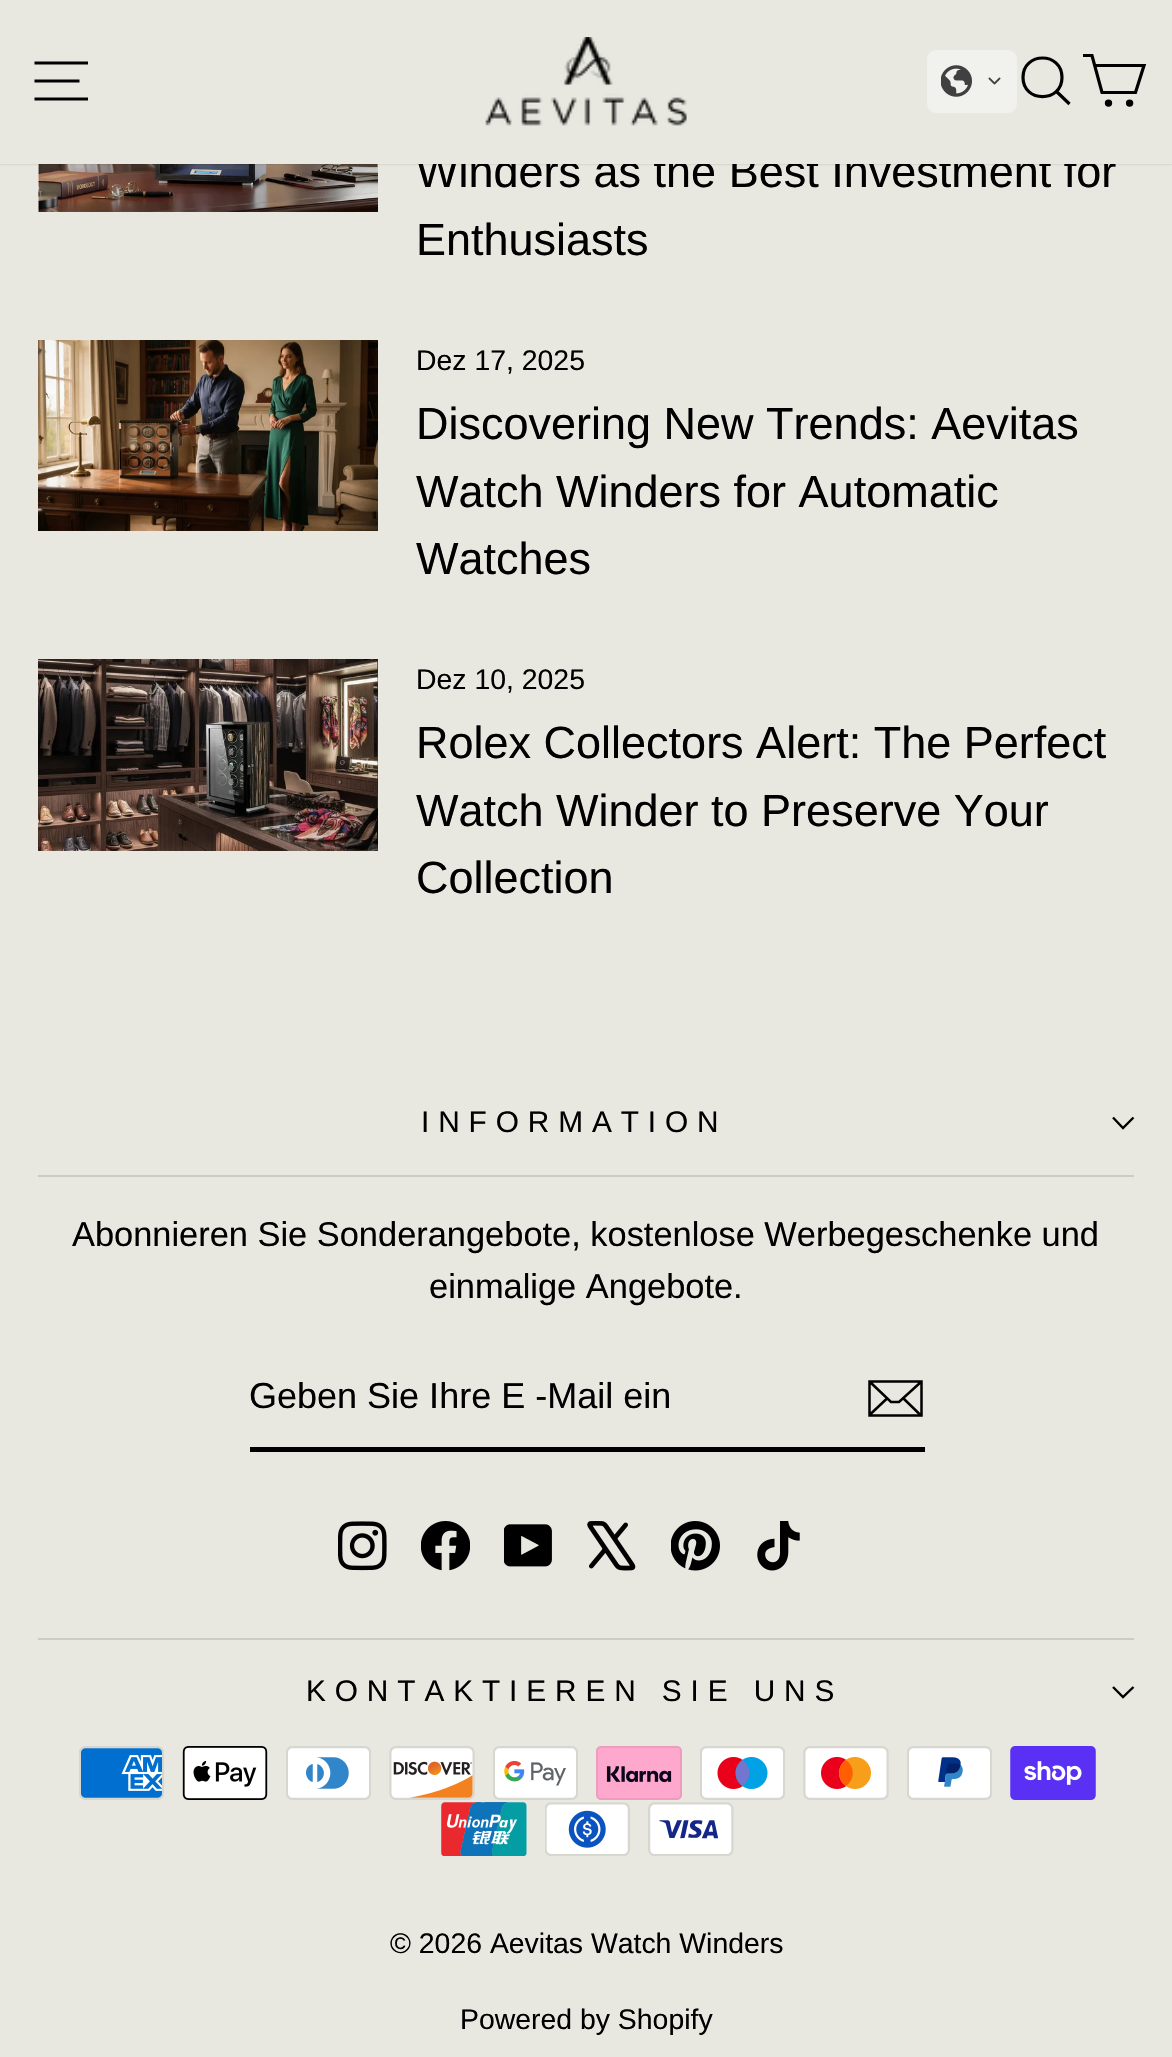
#include "include/core/SkBlurTypes.h"
#include "include/core/SkCanvas.h"
#include "include/core/SkData.h"
#include "include/core/SkFont.h"
#include "include/core/SkFontMgr.h"
#include "include/core/SkImage.h"
#include "include/core/SkMaskFilter.h"
#include "include/core/SkPaint.h"
#include "include/core/SkPathBuilder.h"
#include "include/core/SkTextBlob.h"
#include "include/effects/SkDashPathEffect.h"
#include "include/effects/SkGradientShader.h"
#include "include/utils/SkParsePath.h"

extern sk_sp<SkFontMgr> fontMgr;

void draw(SkCanvas* canvas) {
    SkPaint p;
    p.setAntiAlias(true);
    auto font = [&](const char* family, int weight, float size, bool italic = false) {
        SkFontStyle style(weight, SkFontStyle::kNormal_Width,
            italic ? SkFontStyle::kItalic_Slant : SkFontStyle::kUpright_Slant);
        SkFont result(fontMgr->matchFamilyStyle(family, style), size);
        result.setSubpixel(true);
        return result;
    };
    auto drawTracked = [&](const char* s, float x, float y, const SkFont& font, const SkPaint& ink, float letter, float word) {
        std::vector<SkGlyphID> glyphs(font.countText(s, strlen(s), SkTextEncoding::kUTF8));
        std::vector<float> xs(glyphs.size());
        font.textToGlyphs(s, strlen(s), SkTextEncoding::kUTF8, glyphs);
        font.getXPos(glyphs, xs, x);
        float extra = 0;
        for (size_t i = 0; i < glyphs.size(); i++) {
            xs[i] += extra;
            extra += letter + word * (glyphs[i] == font.unicharToGlyph(' '));
        }
        canvas->drawTextBlob(SkTextBlob::MakeFromPosHGlyphs(glyphs, xs, y, font), 0, 0, ink);
    };
    auto drawPhoto = [&](const char* path, float l, float t, float r, float b) {
        auto image = SkImages::DeferredFromEncodedData(SkData::MakeFromFileName(path));
        canvas->drawImageRect(image, SkRect::MakeLTRB(l, t, r, b), SkSamplingOptions());
    };
    canvas->clear(0xFFE8E8E1);
    drawPhoto("media/4.png", 38, 164, 378, 212);
    p.setColor(0x33000000);
    p.setMaskFilter(SkMaskFilter::MakeBlur(kNormal_SkBlurStyle, 1));
    canvas->drawRect(SkRect::MakeLTRB(0, 0, 1172, 164), p);
    p.setMaskFilter(nullptr);
    auto font1 = font("Liberation Sans", 400, 45);
    p.setColor(0xFF000000);
    canvas->drawString("Winders as the Best Investment for", 416, 187, font1, p);
    p.setColor(0xFFE8E8E1);
    canvas->drawRect(SkRect::MakeLTRB(0, 0, 1172, 164), p);
    p.setStyle(SkPaint::kStroke_Style);
    p.setStrokeWidth(3.2f);
    p.setColor(0xFF000000);
    canvas->drawPath(SkPathBuilder().moveTo(34.5f, 63).lineTo(88, 63).moveTo(34.5f, 81).lineTo(79.5f, 81).moveTo(34.5f, 99).lineTo(88, 99).detach(), p);
    drawPhoto("media/1.png", 485, 37, 687, 126);
    p.setStyle(SkPaint::kFill_Style);
    p.setColor(0xFFF1F1ED);
    canvas->drawRoundRect(SkRect::MakeLTRB(927, 50, 1017, 113), 9, 9, p);
    drawPhoto("media/2.png", 941, 65, 972, 97);
    drawPhoto("media/3.png", 988, 77, 1001, 85);
    p.setStyle(SkPaint::kStroke_Style);
    p.setColor(0xFF000000);
    canvas->drawPath(SkPathBuilder().moveTo(1062, 77.5f).cubicTo(1062, 103, 1023, 103, 1023, 77.5f).cubicTo(1023, 51.5f, 1062, 51.5f, 1062, 77.5f).close().moveTo(1069.5f, 104).lineTo(1056.5f, 91.5f).detach(), p);
    canvas->drawPath(SkPathBuilder().moveTo(1095, 65.5f).lineTo(1144, 65.5f).lineTo(1135.5f, 92.5f).lineTo(1102, 92.5f).lineTo(1092, 55.5f).lineTo(1083, 55.5f).detach(), p);
    p.setStyle(SkPaint::kFill_Style);
    canvas->drawCircle(1108.5f, 103.1f, 2.1f, p);
    p.setStyle(SkPaint::kStroke_Style);
    canvas->drawCircle(1108.5f, 103.1f, 2.1f, p);
    p.setStyle(SkPaint::kFill_Style);
    canvas->drawCircle(1129.6f, 103.1f, 2.1f, p);
    p.setStyle(SkPaint::kStroke_Style);
    canvas->drawCircle(1129.6f, 103.1f, 2.1f, p);
    p.setStyle(SkPaint::kFill_Style);
    canvas->drawString("Enthusiasts", 416, 255, font1, p);
    drawPhoto("media/5.png", 38, 340, 378, 531);
    auto font2 = font("Liberation Sans", 400, 28.4f);
    canvas->drawString("Dez 17, 2025", 416, 370, font2, p);
    {
        const struct { const char* s; float x, y; } items[] = {
            {"Discovering New Trends: Aevitas", 416, 439},
            {"Watch Winders for Automatic", 416, 507},
            {"Watches", 416, 574},
        };
        for (auto [s, x, y] : items) {
            canvas->drawString(s, x, y, font1, p);
        }
    }
    drawPhoto("media/6.png", 38, 659, 378, 851);
    canvas->drawString("Dez 10, 2025", 416, 689, font2, p);
    {
        const struct { const char* s; float x, y; } items[] = {
            {"Rolex Collectors Alert: The Perfect", 416, 758},
            {"Watch Winder to Preserve Your", 416, 826},
            {"Collection", 416, 893},
        };
        for (auto [s, x, y] : items) {
            canvas->drawString(s, x, y, font1, p);
        }
    }
    auto font3 = font("Liberation Sans", 400, 29.8f);
    drawTracked("INFORMATION", 421, 1132, font3, p, 8.9f, 0);
    p.setStyle(SkPaint::kStroke_Style);
    p.setStrokeWidth(2.4f);
    canvas->drawPath(SkPathBuilder().moveTo(1113, 1117.5f).lineTo(1123, 1128).lineTo(1133.5f, 1117.5f).detach(), p);
    p.setStyle(SkPaint::kFill_Style);
    p.setColor(0xFFCCCCC6);
    canvas->drawRect(SkRect::MakeLTRB(38, 1175, 1134, 1177), p);
    auto font4 = font("Liberation Sans", 400, 34.4f);
    p.setColor(0xFF000000);
    canvas->drawString("Abonnieren Sie Sonderangebote, kostenlose Werbegeschenke und", 72, 1246, font4, p);
    canvas->drawString("einmalige Angebote.", 429, 1298, font4, p);
    canvas->drawRect(SkRect::MakeLTRB(250, 1447, 925, 1452), p);
    auto font5 = font("Liberation Sans", 400, 36);
    canvas->drawString("Geben Sie Ihre E -Mail ein", 249, 1408, font5, p);
    p.setStyle(SkPaint::kStroke_Style);
    p.setStrokeWidth(2.5f);
    canvas->drawPath(SkPathBuilder().moveTo(921.5f, 1415.5f).lineTo(869.5f, 1415.5f).lineTo(869.5f, 1381.5f).lineTo(921.5f, 1381.5f).close().moveTo(869.5f, 1381.5f).lineTo(891, 1402).lineTo(899, 1402).lineTo(921.5f, 1381.5f).moveTo(887, 1398.5f).lineTo(870, 1414.5f).moveTo(921, 1415.5f).lineTo(903.5f, 1398.5f).detach(), p);
    drawPhoto("media/7.png", 338, 1521, 387, 1571);
    drawPhoto("media/8.png", 421, 1521, 470, 1571);
    drawPhoto("media/9.png", 504, 1524, 552, 1567);
    drawPhoto("media/10.png", 587, 1521, 636, 1571);
    drawPhoto("media/11.png", 671, 1521, 720, 1571);
    drawPhoto("media/12.png", 757, 1521, 800, 1571);
    p.setStyle(SkPaint::kFill_Style);
    p.setColor(0xFFCCCCC6);
    canvas->drawRect(SkRect::MakeLTRB(38, 1638, 1134, 1640), p);
    p.setColor(0xFF000000);
    drawTracked("KONTAKTIEREN SIE UNS", 306, 1701, font3, p, 8.9f, 0);
    p.setStyle(SkPaint::kStroke_Style);
    p.setStrokeWidth(2.4f);
    canvas->drawPath(SkPathBuilder().moveTo(1113, 1687).lineTo(1123, 1697).lineTo(1133.5f, 1687).detach(), p);
    drawPhoto("media/13.png", 79, 1746, 164, 1800);
    drawPhoto("media/14.png", 182, 1746, 268, 1800);
    drawPhoto("media/15.png", 286, 1746, 371, 1800);
    drawPhoto("media/16.png", 389, 1746, 475, 1800);
    drawPhoto("media/17.png", 493, 1746, 578, 1800);
    drawPhoto("media/18.png", 596, 1746, 682, 1800);
    drawPhoto("media/19.png", 700, 1746, 785, 1800);
    drawPhoto("media/20.png", 803, 1746, 889, 1800);
    drawPhoto("media/21.png", 907, 1746, 992, 1800);
    drawPhoto("media/22.png", 1010, 1746, 1096, 1800);
    drawPhoto("media/23.png", 441, 1802, 527, 1856);
    drawPhoto("media/24.png", 545, 1802, 630, 1856);
    drawPhoto("media/25.png", 648, 1802, 734, 1856);
    p.setStyle(SkPaint::kFill_Style);
    canvas->drawString("© 2026 Aevitas Watch Winders", 390, 1953, font2, p);
    canvas->drawString("Powered by Shopify", 460, 2029, font2, p);
}
